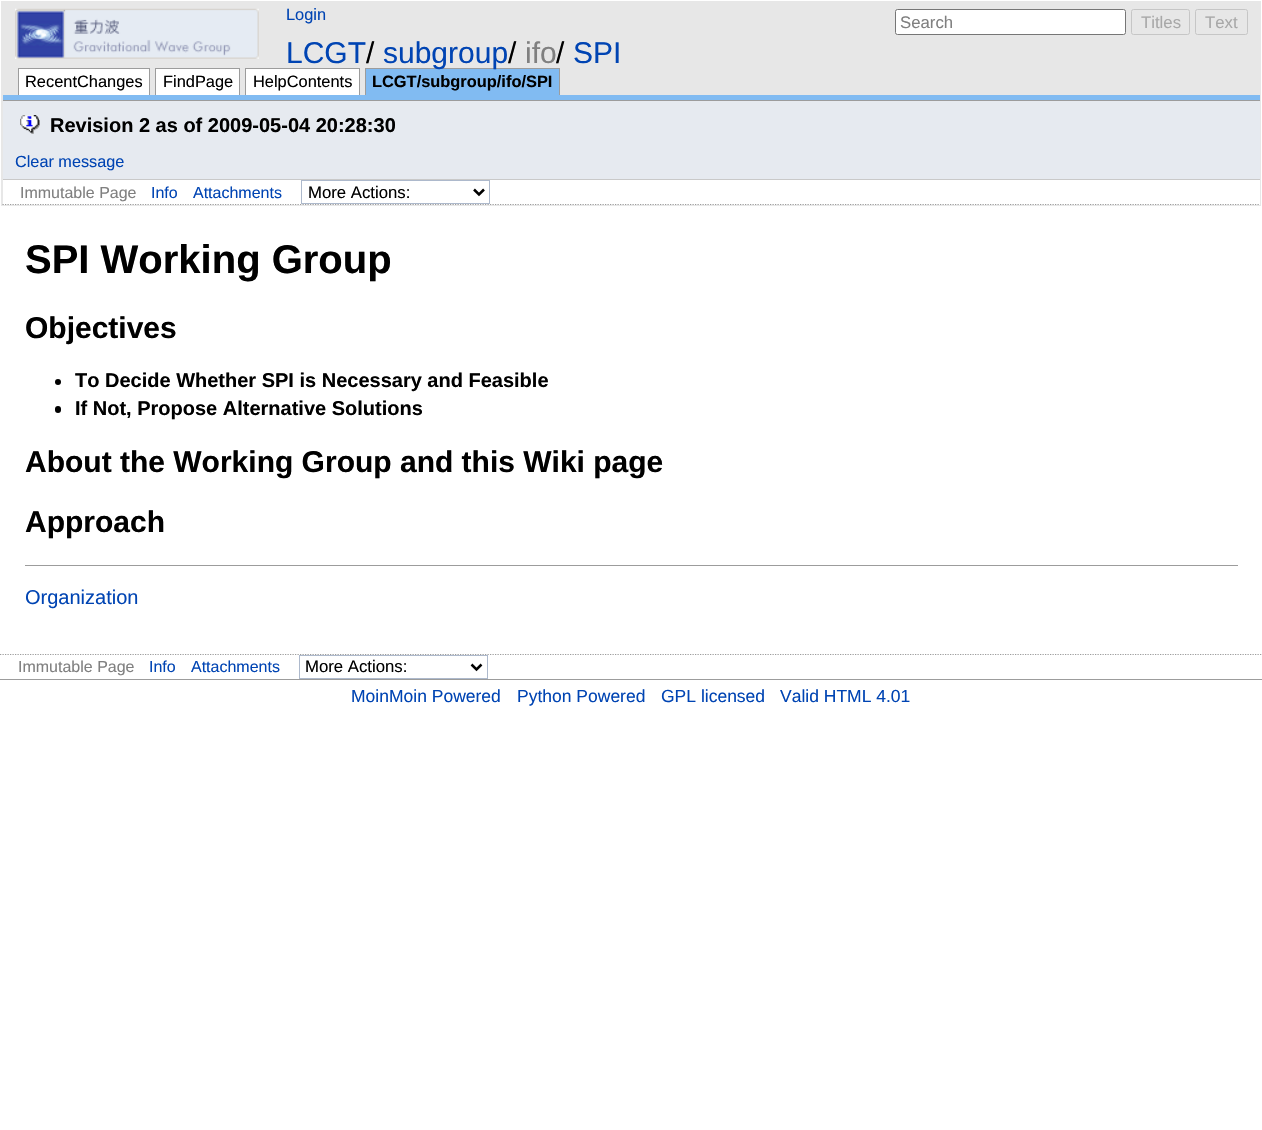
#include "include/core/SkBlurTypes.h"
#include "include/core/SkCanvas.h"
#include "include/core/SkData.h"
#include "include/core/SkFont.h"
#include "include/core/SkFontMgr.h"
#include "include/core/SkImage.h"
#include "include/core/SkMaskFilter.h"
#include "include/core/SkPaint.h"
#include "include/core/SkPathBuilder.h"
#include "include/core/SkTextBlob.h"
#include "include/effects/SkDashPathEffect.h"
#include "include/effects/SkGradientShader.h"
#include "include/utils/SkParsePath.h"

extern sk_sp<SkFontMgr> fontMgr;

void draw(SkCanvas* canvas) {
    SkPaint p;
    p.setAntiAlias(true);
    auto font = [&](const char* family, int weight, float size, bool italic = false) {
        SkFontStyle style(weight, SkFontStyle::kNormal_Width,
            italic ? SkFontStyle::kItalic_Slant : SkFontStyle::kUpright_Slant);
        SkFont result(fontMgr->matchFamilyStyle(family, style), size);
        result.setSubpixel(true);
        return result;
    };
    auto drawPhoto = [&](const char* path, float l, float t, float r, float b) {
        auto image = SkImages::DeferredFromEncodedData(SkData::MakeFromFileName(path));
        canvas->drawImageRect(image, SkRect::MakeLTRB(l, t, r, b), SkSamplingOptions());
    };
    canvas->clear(0xFFFFFFFF);
    p.setColor(0xFFE7E7E7);
    canvas->drawRect(SkRect::MakeLTRB(1, 1, 1261, 206), p);
    drawPhoto("media/1.png", 15, 8, 259, 59);
    auto font1 = font("Liberation Sans", 400, 16.4f);
    p.setColor(0xFF0044B3);
    canvas->drawString("Login", 286, 20, font1, p);
    p.setColor(0xFFFFFFFF);
    canvas->drawRoundRect(SkRect::MakeLTRB(895.5f, 9.5f, 1125.5f, 34.5f), 2, 2, p);
    p.setStyle(SkPaint::kStroke_Style);
    p.setStrokeWidth(1);
    p.setColor(0xFF767676);
    canvas->drawRoundRect(SkRect::MakeLTRB(895.5f, 9.5f, 1125.5f, 34.5f), 2, 2, p);
    auto font2 = font("Liberation Sans", 400, 16.75f);
    p.setStyle(SkPaint::kFill_Style);
    p.setColor(0xFF808080);
    canvas->drawString("Search", 900, 28, font2, p);
    p.setStyle(SkPaint::kStroke_Style);
    p.setColor(0xFFC6C6C6);
    canvas->drawRoundRect(SkRect::MakeLTRB(1131.5f, 9.5f, 1189.5f, 34.5f), 2, 2, p);
    p.setStyle(SkPaint::kFill_Style);
    p.setColor(0xFFA8A8A8);
    canvas->drawString("Titles", 1141, 28, font2, p);
    p.setStyle(SkPaint::kStroke_Style);
    p.setColor(0xFFC6C6C6);
    canvas->drawRoundRect(SkRect::MakeLTRB(1195.5f, 9.5f, 1247.5f, 34.5f), 2, 2, p);
    p.setStyle(SkPaint::kFill_Style);
    p.setColor(0xFFA8A8A8);
    canvas->drawString("Text", 1205, 28, font2, p);
    auto font3 = font("Liberation Sans", 400, 30);
    p.setColor(0xFF0044B3);
    canvas->drawString("LCGT", 286, 63, font3, p);
    p.setColor(0xFF000000);
    canvas->drawString("/", 366, 63, font3, p);
    p.setColor(0xFF81BBF2);
    canvas->drawRect(SkRect::MakeLTRB(366, 69, 559, 95), p);
    p.setColor(0xFF9C9C9C);
    canvas->drawRect(SkRect::MakeLTRB(365, 68, 560, 69), p);
    p.setColor(0xFF0044B3);
    canvas->drawString("subgroup", 383, 63, font3, p);
    p.setColor(0xFF000000);
    canvas->drawString("/", 508, 63, font3, p);
    p.setColor(0xFF808080);
    canvas->drawString("ifo", 525, 63, font3, p);
    p.setColor(0xFF000000);
    canvas->drawString("/", 556, 63, font3, p);
    p.setColor(0xFF0044B3);
    canvas->drawString("SPI", 573, 63, font3, p);
    {
        const struct { float l, t, r, b; SkColor color; } items[] = {
            {19, 69, 149, 95, 0xFFFFFFFF},
            {18, 68, 150, 69, 0xFF9C9C9C},
            {149, 68, 150, 95, 0xFF9C9C9C},
            {18, 68, 19, 95, 0xFF9C9C9C},
        };
        for (auto [l, t, r, b, color] : items) {
            p.setColor(color);
            canvas->drawRect(SkRect::MakeLTRB(l, t, r, b), p);
        }
    }
    p.setColor(0xFF000000);
    canvas->drawString("RecentChanges", 25, 87, font1, p);
    {
        const struct { float l, t, r, b; SkColor color; } items[] = {
            {156, 69, 239, 95, 0xFFFFFFFF},
            {155, 68, 240, 69, 0xFF9C9C9C},
            {239, 68, 240, 95, 0xFF9C9C9C},
            {155, 68, 156, 95, 0xFF9C9C9C},
        };
        for (auto [l, t, r, b, color] : items) {
            p.setColor(color);
            canvas->drawRect(SkRect::MakeLTRB(l, t, r, b), p);
        }
    }
    p.setColor(0xFF000000);
    canvas->drawString("FindPage", 163, 87, font1, p);
    {
        const struct { float l, t, r, b; SkColor color; } items[] = {
            {246, 69, 359, 95, 0xFFFFFFFF},
            {245, 68, 360, 69, 0xFF9C9C9C},
            {359, 68, 360, 95, 0xFF9C9C9C},
            {245, 68, 246, 95, 0xFF9C9C9C},
        };
        for (auto [l, t, r, b, color] : items) {
            p.setColor(color);
            canvas->drawRect(SkRect::MakeLTRB(l, t, r, b), p);
        }
    }
    p.setColor(0xFF000000);
    canvas->drawString("HelpContents", 253, 87, font1, p);
    p.setColor(0xFF9C9C9C);
    canvas->drawRect(SkRect::MakeLTRB(559, 68, 560, 95), p);
    canvas->drawRect(SkRect::MakeLTRB(365, 68, 366, 95), p);
    auto font4 = font("Liberation Sans", 700, 16.4f);
    p.setColor(0xFF000000);
    canvas->drawString("LCGT/subgroup/ifo/SPI", 372, 87, font4, p);
    {
        const struct { float l, t, r, b; SkColor color; } items[] = {
            {3, 95, 1260, 100, 0xFF81BBF2},
            {3, 100, 1260, 101, 0xFF9C9C9C},
            {3, 101, 1260, 179, 0xFFE6EAF0},
            {3, 179, 1260, 180, 0xFFC9C9C9},
        };
        for (auto [l, t, r, b, color] : items) {
            p.setColor(color);
            canvas->drawRect(SkRect::MakeLTRB(l, t, r, b), p);
        }
    }
    drawPhoto("media/2.png", 20, 115, 40, 134);
    auto font5 = font("Liberation Sans", 700, 20);
    p.setColor(0xFF000000);
    canvas->drawString("Revision 2 as of 2009-05-04 20:28:30", 50, 132, font5, p);
    auto font6 = font("Liberation Sans", 400, 16.25f);
    p.setColor(0xFF0044B3);
    canvas->drawString("Clear message", 15, 167, font6, p);
    p.setColor(0xFFFFFFFF);
    canvas->drawRect(SkRect::MakeLTRB(3, 180, 1260, 205), p);
    p.setStyle(SkPaint::kStroke_Style);
    p.setStrokeWidth(1.2f);
    p.setColor(0xFF9C9C9C);
    p.setPathEffect(SkDashPathEffect::Make({{1.25f, 1.25f}}, 0));
    canvas->drawPath(SkPathBuilder().moveTo(2.5f, 204.5f).lineTo(1260, 204.5f).detach(), p);
    p.setPathEffect(nullptr);
    auto font7 = font("Liberation Sans", 400, 16);
    p.setStyle(SkPaint::kFill_Style);
    p.setColor(0xFF808080);
    canvas->drawString("Immutable Page", 20, 198, font7, p);
    p.setColor(0xFF0044B3);
    canvas->drawString("Info", 151, 198, font7, p);
    canvas->drawString("Attachments", 193, 198, font7, p);
    p.setStyle(SkPaint::kStroke_Style);
    p.setStrokeWidth(1);
    p.setColor(0xFFADB9CC);
    canvas->drawRect(SkRect::MakeLTRB(301.5f, 180.5f, 489.5f, 203.5f), p);
    p.setStrokeWidth(2.5f);
    p.setColor(0xFF000000);
    canvas->drawPath(SkPathBuilder().moveTo(474, 189.5f).lineTo(479, 194.5f).lineTo(484, 189.5f).detach(), p);
    p.setStyle(SkPaint::kFill_Style);
    canvas->drawString("More Actions:", 308, 198, font2, p);
    auto font8 = font("Liberation Sans", 700, 40);
    canvas->drawString("SPI Working Group", 25, 273, font8, p);
    auto font9 = font("Liberation Sans", 700, 30);
    canvas->drawString("Objectives", 25, 338, font9, p);
    canvas->drawCircle(58, 382, 3, p);
    canvas->drawString("To Decide Whether SPI is Necessary and Feasible", 75, 387, font5, p);
    canvas->drawRoundRect(SkRect::MakeLTRB(55, 406, 61, 413), 3, 3, p);
    canvas->drawString("If Not, Propose Alternative Solutions", 75, 415, font5, p);
    canvas->drawString("About the Working Group and this Wiki page", 25, 472, font9, p);
    canvas->drawString("Approach", 25, 532, font9, p);
    p.setColor(0xFF9C9C9C);
    canvas->drawRect(SkRect::MakeLTRB(25, 565, 1238, 566), p);
    auto font10 = font("Liberation Sans", 400, 20);
    p.setColor(0xFF0044B3);
    canvas->drawString("Organization", 25, 604, font10, p);
    p.setStyle(SkPaint::kStroke_Style);
    p.setStrokeWidth(1.2f);
    p.setColor(0xFF9C9C9C);
    p.setPathEffect(SkDashPathEffect::Make({{1.25f, 1.25f}}, 0));
    canvas->drawPath(SkPathBuilder().moveTo(0, 654.5f).lineTo(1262.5f, 654.5f).detach(), p);
    p.setPathEffect(nullptr);
    p.setStyle(SkPaint::kFill_Style);
    canvas->drawRect(SkRect::MakeLTRB(0, 679, 1262, 680), p);
    p.setColor(0xFF808080);
    canvas->drawString("Immutable Page", 18, 672, font7, p);
    p.setColor(0xFF0044B3);
    canvas->drawString("Info", 149, 672, font7, p);
    canvas->drawString("Attachments", 191, 672, font7, p);
    p.setStyle(SkPaint::kStroke_Style);
    p.setStrokeWidth(1);
    p.setColor(0xFFADB9CC);
    canvas->drawRect(SkRect::MakeLTRB(299.5f, 655.5f, 487.5f, 678.5f), p);
    p.setStrokeWidth(2.5f);
    p.setColor(0xFF000000);
    canvas->drawPath(SkPathBuilder().moveTo(471.5f, 664.5f).lineTo(476.5f, 669.5f).lineTo(481.5f, 664.5f).detach(), p);
    p.setStyle(SkPaint::kFill_Style);
    canvas->drawString("More Actions:", 305, 672, font2, p);
    auto font11 = font("Liberation Sans", 400, 17.5f);
    p.setColor(0xFF0044B3);
    {
        const struct { const char* s; float x, y; } items[] = {
            {"MoinMoin Powered", 351, 702},
            {"Python Powered", 517, 702},
            {"GPL licensed", 661, 702},
            {"Valid HTML 4.01", 780, 702},
        };
        for (auto [s, x, y] : items) {
            canvas->drawString(s, x, y, font11, p);
        }
    }
}
